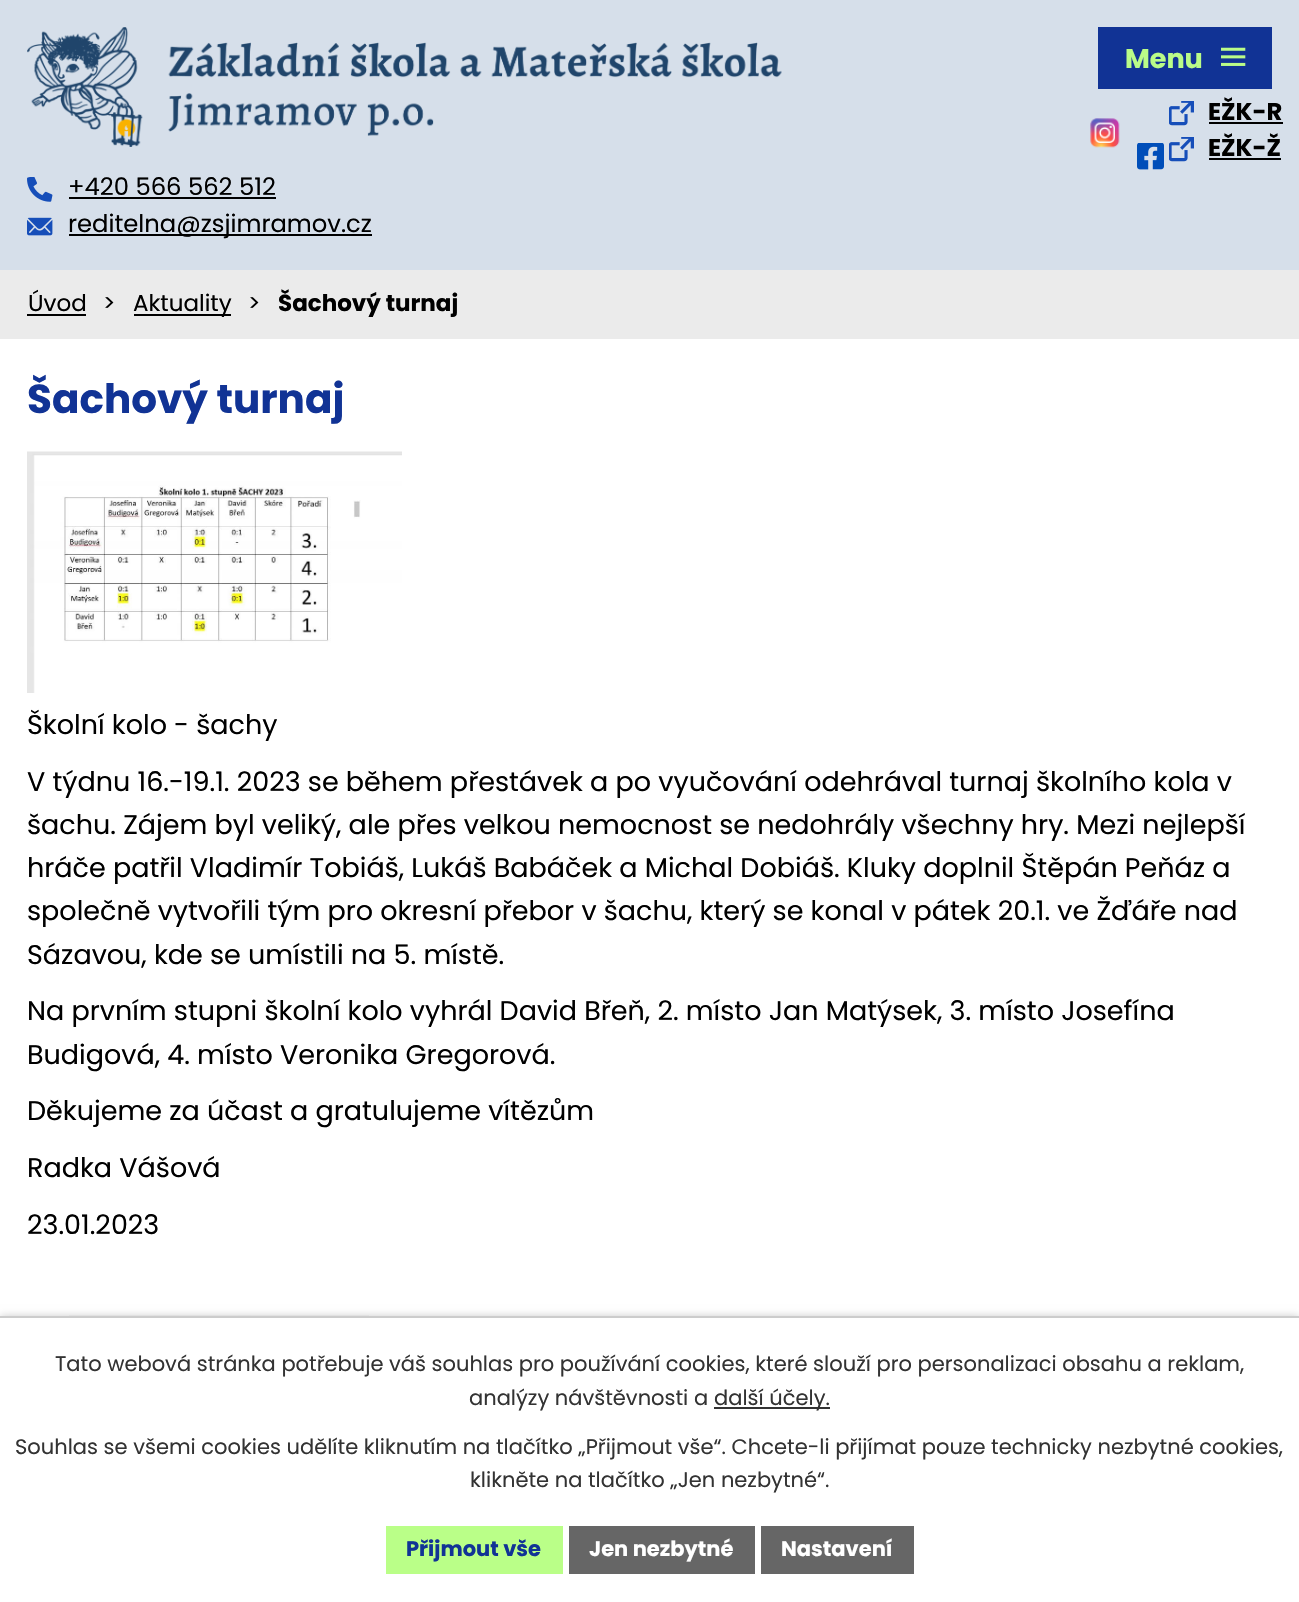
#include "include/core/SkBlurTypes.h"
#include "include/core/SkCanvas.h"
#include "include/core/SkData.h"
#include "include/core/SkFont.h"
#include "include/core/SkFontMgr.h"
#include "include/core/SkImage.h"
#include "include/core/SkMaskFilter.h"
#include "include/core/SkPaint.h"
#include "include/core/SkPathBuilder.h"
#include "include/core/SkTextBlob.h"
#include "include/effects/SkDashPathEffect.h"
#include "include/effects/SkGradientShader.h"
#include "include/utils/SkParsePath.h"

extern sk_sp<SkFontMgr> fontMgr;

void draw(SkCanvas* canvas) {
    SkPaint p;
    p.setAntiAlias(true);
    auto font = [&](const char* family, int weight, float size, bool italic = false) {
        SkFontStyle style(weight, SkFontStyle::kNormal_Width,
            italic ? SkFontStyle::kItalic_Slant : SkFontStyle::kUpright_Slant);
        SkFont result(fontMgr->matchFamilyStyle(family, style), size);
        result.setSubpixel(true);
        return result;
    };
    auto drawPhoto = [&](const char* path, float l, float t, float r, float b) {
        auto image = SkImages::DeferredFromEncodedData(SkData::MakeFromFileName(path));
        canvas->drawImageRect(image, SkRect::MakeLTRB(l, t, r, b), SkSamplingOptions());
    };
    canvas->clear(0xFFFFFFFF);
    p.setColor(0xFFD6DFEA);
    canvas->drawRect(SkRect::MakeLTRB(0, 0, 1299, 270), p);
    p.setColor(0xFF113395);
    canvas->drawRect(SkRect::MakeLTRB(1098, 27, 1272, 89), p);
    auto font1 = font("Poppins", 700, 27);
    p.setColor(0xFFBAFC88);
    canvas->drawString("Menu", 1125, 68, font1, p);
    drawPhoto("media/1.png", 1221, 47, 1246, 66);
    drawPhoto("media/2.png", 27, 27, 782, 147);
    drawPhoto("media/3.png", 1090, 118, 1120, 148);
    drawPhoto("media/4.png", 1169, 101, 1194, 126);
    auto font2 = font("Poppins", 700, 24.25f);
    p.setColor(0xFF000000);
    canvas->drawString("EŽK-R", 1208, 120, font2, p);
    canvas->drawRect(SkRect::MakeLTRB(1209, 122, 1283, 124), p);
    drawPhoto("media/4.png", 1169, 137, 1194, 162);
    canvas->drawString("EŽK-Ž", 1208, 156, font2, p);
    canvas->drawRect(SkRect::MakeLTRB(1209, 158, 1281, 160), p);
    drawPhoto("media/5.png", 1137, 143, 1164, 170);
    drawPhoto("media/6.png", 27, 177, 53, 202);
    auto font3 = font("Poppins", 400, 24.25f);
    canvas->drawString("+420 566 562 512", 68, 195, font3, p);
    canvas->drawRect(SkRect::MakeLTRB(69, 197, 276, 199), p);
    drawPhoto("media/7.png", 27, 217, 53, 236);
    canvas->drawRect(SkRect::MakeLTRB(69, 234, 372, 236), p);
    canvas->drawString("reditelna@zsjimramov.cz", 68, 232, font3, p);
    p.setColor(0xFFEBEBEB);
    canvas->drawRect(SkRect::MakeLTRB(0, 270, 1299, 339), p);
    auto font4 = font("Poppins", 400, 23);
    p.setColor(0xFF000000);
    canvas->drawString("Úvod", 28, 311, font4, p);
    canvas->drawRect(SkRect::MakeLTRB(27, 314, 86, 316), p);
    canvas->drawString(">", 103, 311, font4, p);
    canvas->drawRect(SkRect::MakeLTRB(134, 314, 231, 316), p);
    canvas->drawString("Aktuality", 133, 311, font4, p);
    canvas->drawString(">", 248, 311, font4, p);
    auto font5 = font("Poppins", 700, 23);
    canvas->drawString("Šachový turnaj", 278, 311, font5, p);
    auto font6 = font("Poppins", 700, 40.5f);
    p.setColor(0xFF113395);
    canvas->drawString("Šachový turnaj", 27, 413, font6, p);
    drawPhoto("media/8.png", 27, 451, 402, 693);
    auto font7 = font("Poppins", 400, 27);
    p.setColor(0xFF000000);
    {
        const struct { const char* s; float x, y; } items[] = {
            {"Školní kolo - šachy", 27, 734},
            {"V týdnu 16.-19.1. 2023 se během přestávek a po vyučování odehrával turnaj školního kola v", 27, 791},
            {"šachu. Zájem byl veliký, ale přes velkou nemocnost se nedohrály všechny hry. Mezi nejlepší", 27, 834},
            {"hráče patřil Vladimír Tobiáš, Lukáš Babáček a Michal Dobiáš. Kluky doplnil Štěpán Peňáz a", 27, 877},
            {"společně vytvořili tým pro okresní přebor v šachu, který se konal v pátek 20.1. ve Žďáře nad", 27, 920},
            {"Sázavou, kde se umístili na 5. místě.", 27, 964},
            {"Na prvním stupni školní kolo vyhrál David Břeň, 2. místo Jan Matýsek, 3. místo Josefína", 27, 1020},
            {"Budigová, 4. místo Veronika Gregorová.", 27, 1064},
            {"Děkujeme za účast a gratulujeme vítězům", 27, 1120},
            {"Radka Vášová", 27, 1177},
            {"23.01.2023", 27, 1234},
        };
        for (auto [s, x, y] : items) {
            canvas->drawString(s, x, y, font7, p);
        }
    }
    drawPhoto("media/9.png", 69, 1315, 369, 1316);
    p.setColor(0x33000000);
    p.setMaskFilter(SkMaskFilter::MakeBlur(kNormal_SkBlurStyle, 4));
    canvas->drawRect(SkRect::MakeLTRB(0, 1316, 1299, 1602), p);
    p.setMaskFilter(nullptr);
    p.setColor(0xFFFFFFFF);
    canvas->drawRect(SkRect::MakeLTRB(0, 1318, 1299, 1602), p);
    p.setColor(0xFFCCCCCC);
    canvas->drawRect(SkRect::MakeLTRB(0, 1316, 1299, 1318), p);
    auto font8 = font("Poppins", 400, 21);
    p.setColor(0xFF333333);
    canvas->drawString("Tato webová stránka potřebuje váš souhlas pro používání cookies, které slouží pro personalizaci obsahu a reklam,", 55, 1371, font8, p);
    canvas->drawString("analýzy návštěvnosti a", 469, 1405, font8, p);
    canvas->drawRect(SkRect::MakeLTRB(714, 1407, 830, 1409), p);
    {
        const struct { const char* s; float x, y; } items[] = {
            {"další účely.", 714, 1405},
            {"Souhlas se všemi cookies udělíte kliknutím na tlačítko „Přijmout vše“. Chcete-li přijímat pouze technicky nezbytné cookies,", 15, 1454},
            {"klikněte na tlačítko „Jen nezbytné“.", 470, 1487},
        };
        for (auto [s, x, y] : items) {
            canvas->drawString(s, x, y, font8, p);
        }
    }
    p.setColor(0xFFBAFF88);
    canvas->drawRect(SkRect::MakeLTRB(386, 1526, 563, 1574), p);
    auto font9 = font("Poppins", 700, 21);
    p.setColor(0xFF113395);
    canvas->drawString("Přijmout vše", 406, 1556, font9, p);
    p.setColor(0xFF666666);
    canvas->drawRect(SkRect::MakeLTRB(569, 1526, 755, 1574), p);
    p.setColor(0xFFFFFFFF);
    canvas->drawString("Jen nezbytné", 589, 1556, font9, p);
    p.setColor(0xFF666666);
    canvas->drawRect(SkRect::MakeLTRB(761, 1526, 914, 1574), p);
    p.setColor(0xFFFFFFFF);
    canvas->drawString("Nastavení", 781, 1556, font9, p);
}
